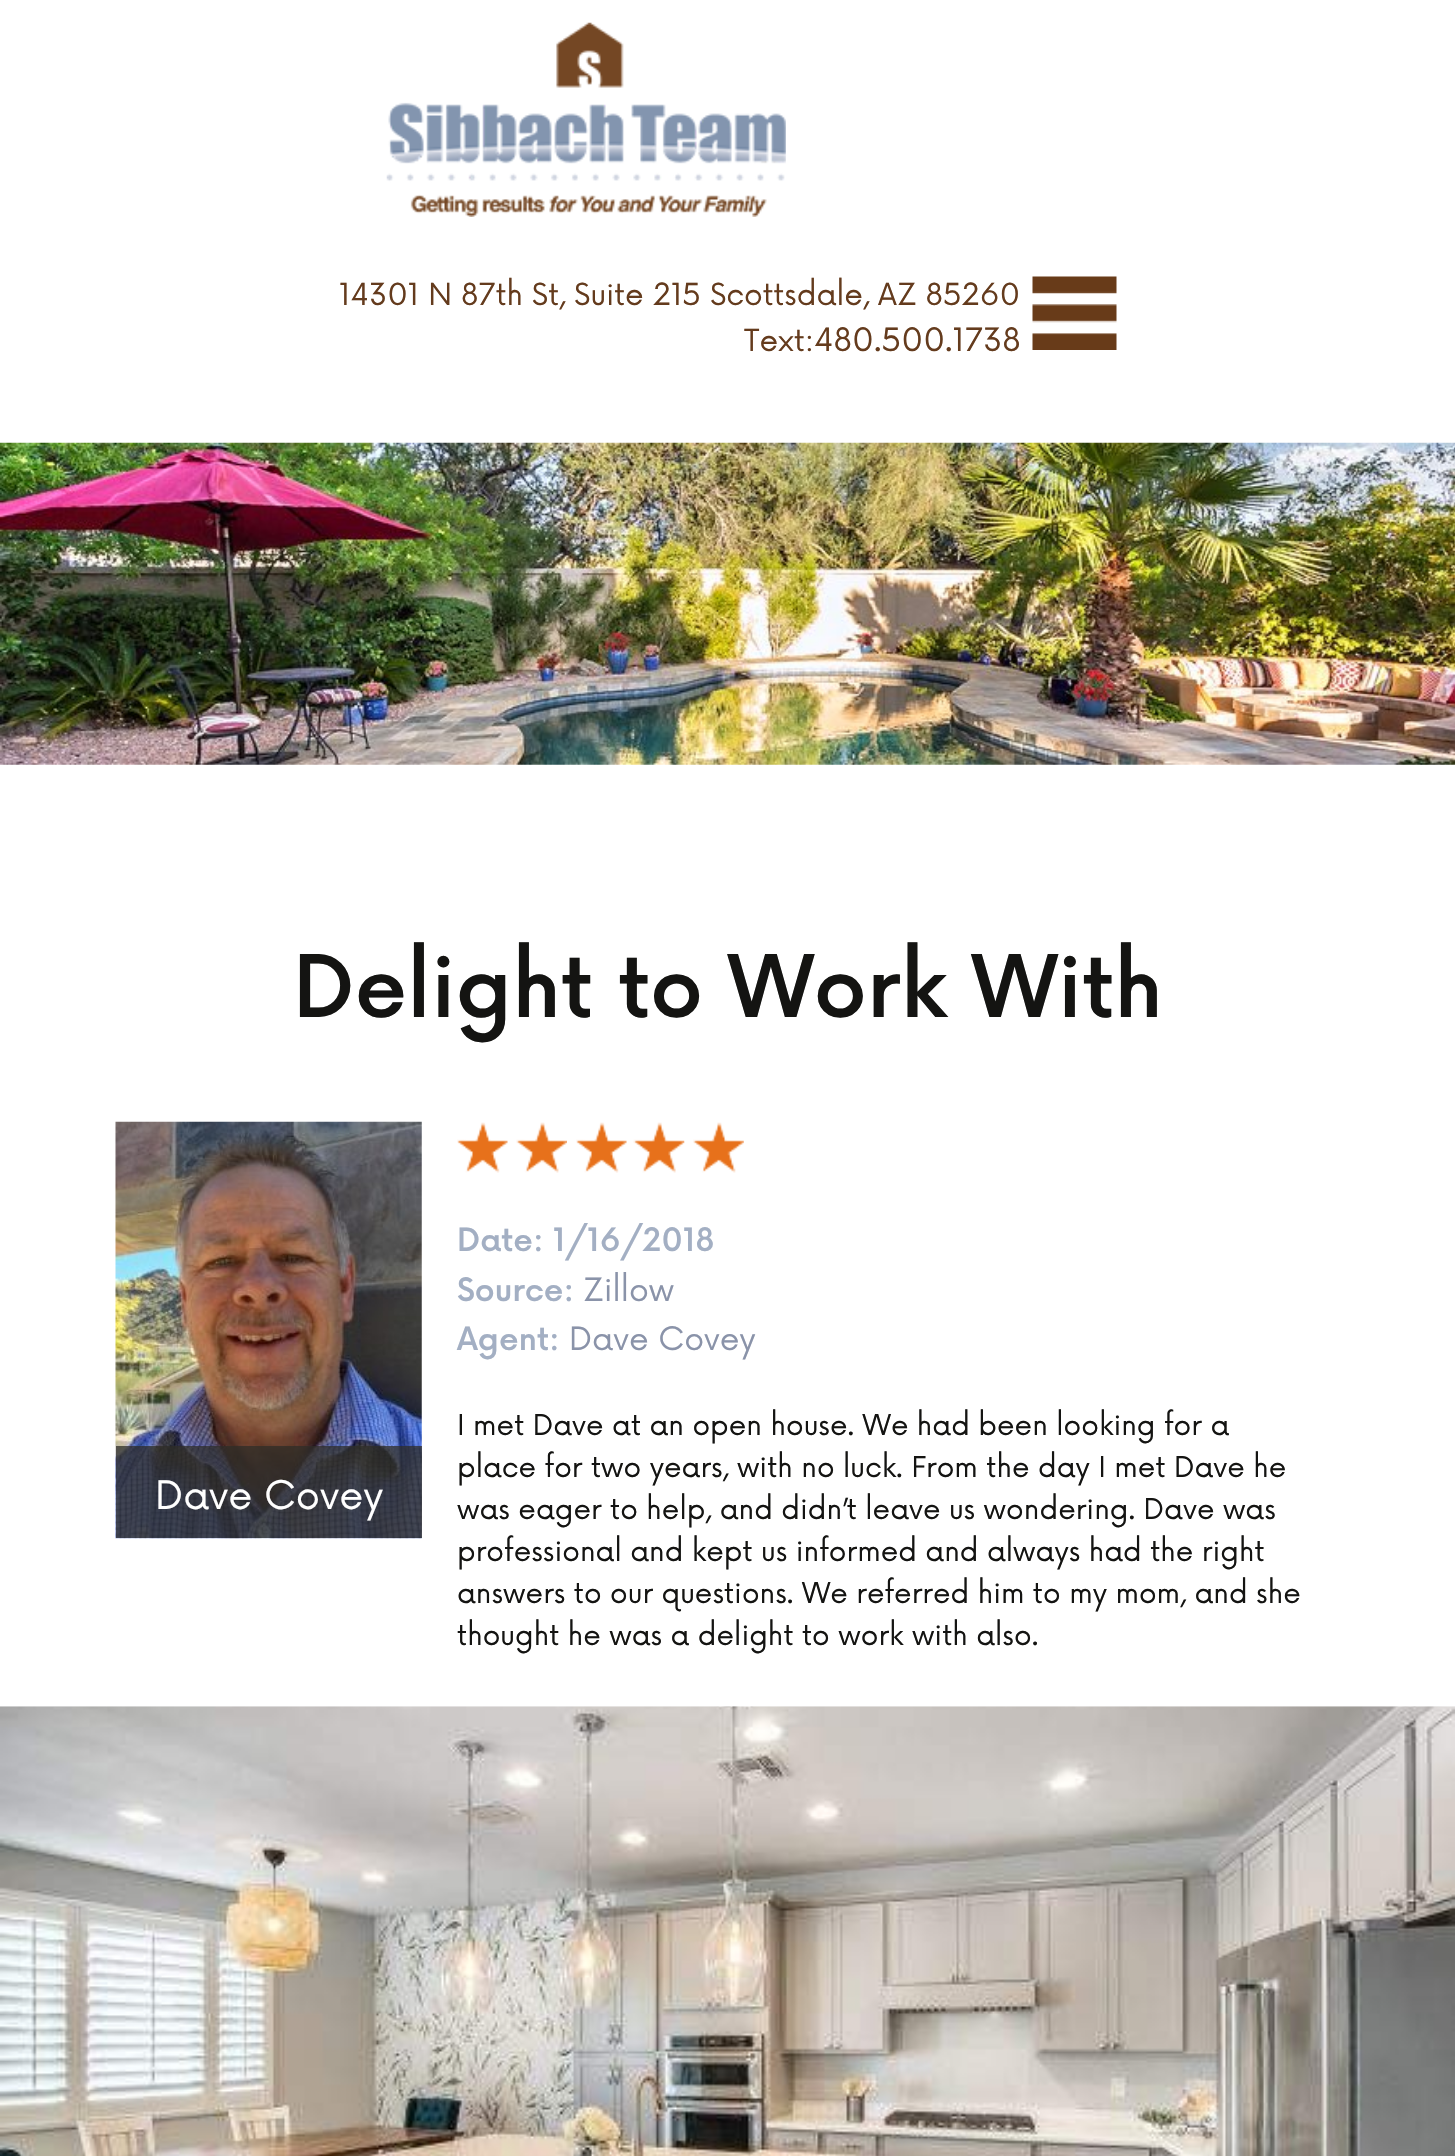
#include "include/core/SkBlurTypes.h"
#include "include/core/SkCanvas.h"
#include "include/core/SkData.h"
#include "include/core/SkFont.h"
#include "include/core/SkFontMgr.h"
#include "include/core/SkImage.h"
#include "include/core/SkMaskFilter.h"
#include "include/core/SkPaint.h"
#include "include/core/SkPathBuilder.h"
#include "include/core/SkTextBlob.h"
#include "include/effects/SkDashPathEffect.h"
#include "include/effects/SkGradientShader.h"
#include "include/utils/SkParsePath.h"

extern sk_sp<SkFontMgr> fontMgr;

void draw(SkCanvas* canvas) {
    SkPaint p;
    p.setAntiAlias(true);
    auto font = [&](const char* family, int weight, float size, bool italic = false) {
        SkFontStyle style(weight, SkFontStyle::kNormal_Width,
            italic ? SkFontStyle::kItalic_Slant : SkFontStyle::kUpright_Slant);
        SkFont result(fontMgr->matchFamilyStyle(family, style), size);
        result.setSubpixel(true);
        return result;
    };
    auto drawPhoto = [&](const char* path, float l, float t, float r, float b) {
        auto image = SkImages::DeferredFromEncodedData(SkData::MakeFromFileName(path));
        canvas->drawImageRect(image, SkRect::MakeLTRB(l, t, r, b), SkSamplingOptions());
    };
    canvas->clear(0xFFFFFFFF);
    drawPhoto("media/1.png", 386, 22, 786, 217);
    auto font1 = font("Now", 400, 29.75f);
    p.setColor(0xFF643B1D);
    canvas->drawString("14301 N 87th St, Suite 215 Scottsdale, AZ 85260", 339, 305, font1, p);
    canvas->drawString("Text:", 744, 351, font1, p);
    auto font2 = font("Now", 400, 31.5f);
    canvas->drawString("480.500.1738", 814, 351, font2, p);
    drawPhoto("media/2.png", 1032, 276, 1117, 350);
    drawPhoto("media/3.png", 0, 442, 1455, 765);
    auto font3 = font("Now", 500, 84);
    p.setColor(0xFF141412);
    canvas->drawString("Delight to Work With", 293, 1017, font3, p);
    drawPhoto("media/4.png", 115, 1121, 422, 1539);
    p.setColor(0xBF2E2C27);
    canvas->drawRect(SkRect::MakeLTRB(116, 1446, 422, 1538), p);
    auto font4 = font("Now", 400, 38.5f);
    p.setColor(0xFFFFFFFF);
    canvas->drawString("Dave Covey", 155, 1509, font4, p);
    drawPhoto("media/5.png", 457, 1122, 508, 1173);
    drawPhoto("media/6.png", 516, 1122, 567, 1173);
    drawPhoto("media/5.png", 576, 1122, 627, 1173);
    drawPhoto("media/7.png", 633, 1122, 685, 1173);
    drawPhoto("media/8.png", 693, 1122, 744, 1173);
    auto font5 = font("Now", 500, 31.5f);
    p.setColor(0xFFA3AFC3);
    canvas->drawString("Date: 1/16/2018", 457, 1251, font5, p);
    canvas->drawString("Source:", 457, 1301, font5, p);
    p.setColor(0xFF8A93A9);
    canvas->drawString("Zillow", 583, 1301, font2, p);
    p.setColor(0xFFA3AFC3);
    canvas->drawString("Agent:", 457, 1350, font5, p);
    p.setColor(0xFF8A93A9);
    canvas->drawString("Dave Covey", 569, 1350, font2, p);
    auto font6 = font("Now", 400, 28);
    p.setColor(0xFF141412);
    {
        const struct { const char* s; float x, y; } items[] = {
            {"I met Dave at an open house. We had been looking for a", 457, 1435},
            {"place for two years, with no luck. From the day I met Dave he", 457, 1477},
            {"was eager to help, and didn’t leave us wondering. Dave was", 457, 1519},
            {"professional and kept us informed and always had the right", 457, 1561},
            {"answers to our questions. We referred him to my mom, and she", 457, 1603},
            {"thought he was a delight to work with also.", 457, 1645},
        };
        for (auto [s, x, y] : items) {
            canvas->drawString(s, x, y, font6, p);
        }
    }
    drawPhoto("media/9.png", 0, 1706, 1455, 2156);
}
